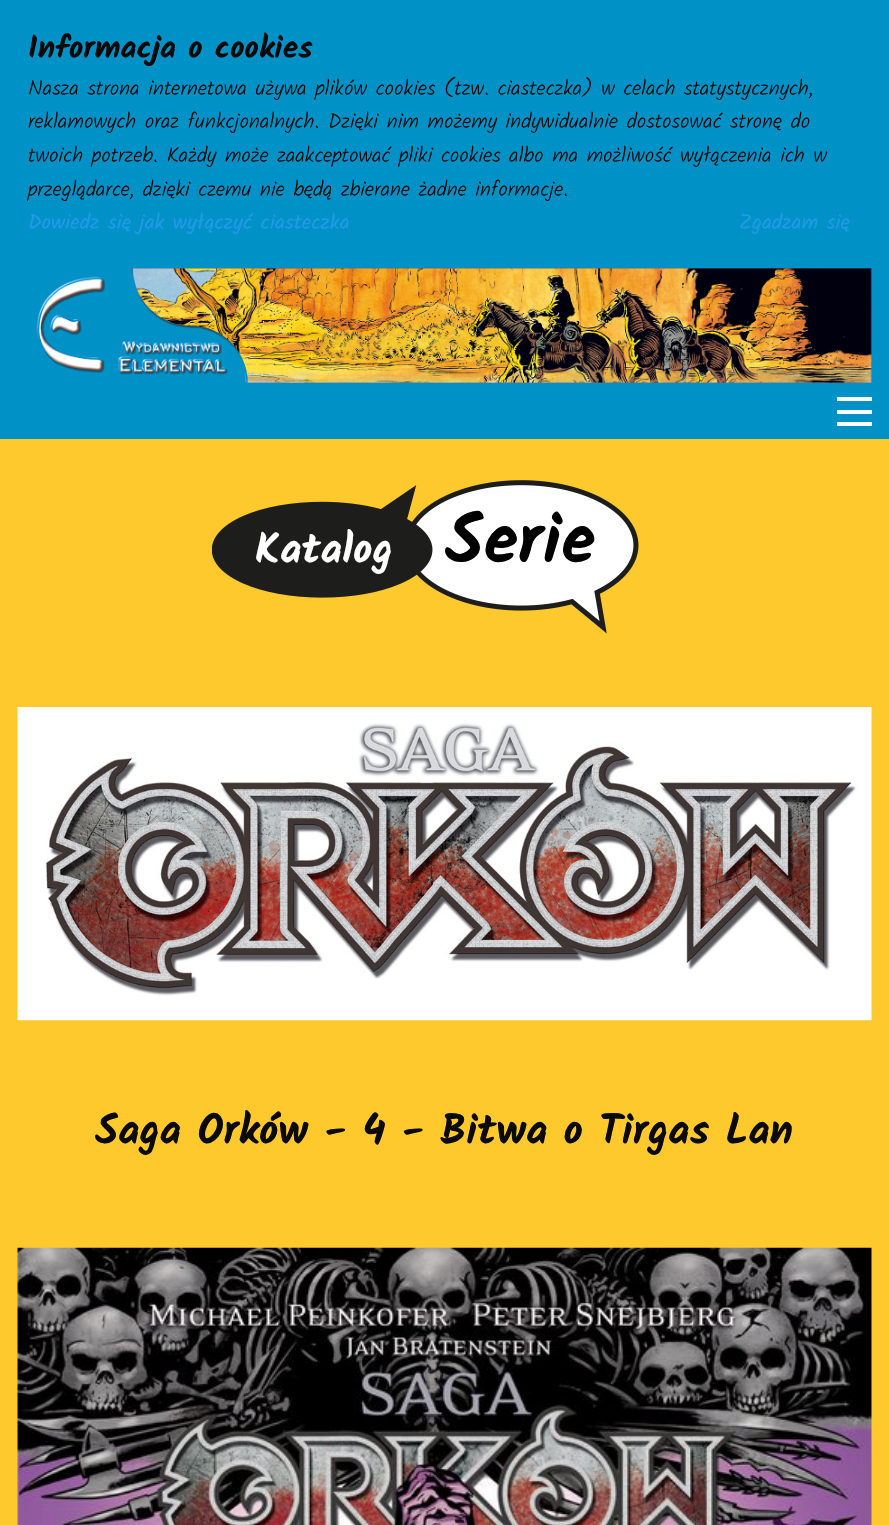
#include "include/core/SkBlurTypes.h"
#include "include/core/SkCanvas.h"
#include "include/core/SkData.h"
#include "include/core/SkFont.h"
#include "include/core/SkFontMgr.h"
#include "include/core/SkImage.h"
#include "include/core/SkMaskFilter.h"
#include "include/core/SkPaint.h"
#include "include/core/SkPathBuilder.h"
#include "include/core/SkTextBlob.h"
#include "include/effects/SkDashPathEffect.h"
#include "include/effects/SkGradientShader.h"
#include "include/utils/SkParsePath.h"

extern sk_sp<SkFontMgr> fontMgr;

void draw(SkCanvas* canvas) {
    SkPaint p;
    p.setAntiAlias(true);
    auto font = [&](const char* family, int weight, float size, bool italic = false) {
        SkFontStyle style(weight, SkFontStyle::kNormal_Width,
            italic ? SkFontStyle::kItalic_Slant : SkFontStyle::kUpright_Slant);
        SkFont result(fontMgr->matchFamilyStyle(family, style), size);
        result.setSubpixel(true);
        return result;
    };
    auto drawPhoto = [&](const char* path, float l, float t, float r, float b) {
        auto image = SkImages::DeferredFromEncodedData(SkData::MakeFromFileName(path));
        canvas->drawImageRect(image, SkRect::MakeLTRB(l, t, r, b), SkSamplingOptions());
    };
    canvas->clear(0xFFFEC92C);
    p.setColor(0xFF0092C7);
    canvas->drawRect(SkRect::MakeLTRB(0, 0, 889, 439), p);
    drawPhoto("media/1.png", 17, 268, 872, 384);
    auto font1 = font("Kalam", 700, 31.5f);
    p.setColor(0xFF0A0A0A);
    canvas->drawString("Informacja o cookies", 28, 58, font1, p);
    auto font2 = font("Kalam", 300, 21);
    {
        const struct { const char* s; float x, y; } items[] = {
            {"Nasza strona internetowa używa plików cookies (tzw. ciasteczka) w celach statystycznych,", 28, 95},
            {"reklamowych oraz funkcjonalnych. Dzięki nim możemy indywidualnie dostosować stronę do", 28, 128},
            {"twoich potrzeb. Każdy może zaakceptować pliki cookies albo ma możliwość wyłączenia ich w", 28, 162},
            {"przeglądarce, dzięki czemu nie będą zbierane żadne informacje.", 28, 196},
        };
        for (auto [s, x, y] : items) {
            canvas->drawString(s, x, y, font2, p);
        }
    }
    auto font3 = font("Kalam", 400, 21);
    p.setColor(0xFF2199E8);
    canvas->drawString("Dowiedz się jak wyłączyć ciasteczka", 28, 229, font3, p);
    canvas->drawString("Zgadzam się", 739, 229, font3, p);
    {
        const struct { float l, t, r, b; SkColor color; } items[] = {
            {244, 383, 872, 384, 0xFF0092C7},
            {837, 422, 872, 426, 0xFFFEFEFE},
            {837, 410, 872, 414, 0xFFFEFEFE},
            {837, 397, 872, 401, 0xFFFEFEFE},
        };
        for (auto [l, t, r, b, color] : items) {
            p.setColor(color);
            canvas->drawRect(SkRect::MakeLTRB(l, t, r, b), p);
        }
    }
    drawPhoto("media/3.png", 412, 480, 639, 634);
    drawPhoto("media/2.png", 212, 485, 433, 598);
    auto font4 = font("Kalam", 700, 42);
    p.setColor(0xFFFFFFFF);
    canvas->drawString("Katalog", 255, 563, font4, p);
    auto font5 = font("Kalam", 700, 70);
    p.setColor(0xFF000000);
    canvas->drawString("Serie", 445, 563, font5, p);
    drawPhoto("media/4.png", 17, 707, 872, 1021);
    p.setColor(0xFF0A0A0A);
    canvas->drawString("Saga Orków - 4 - Bitwa o Tirgas Lan", 95, 1144, font4, p);
    drawPhoto("media/5.png", 17, 1247, 872, 1525);
}
